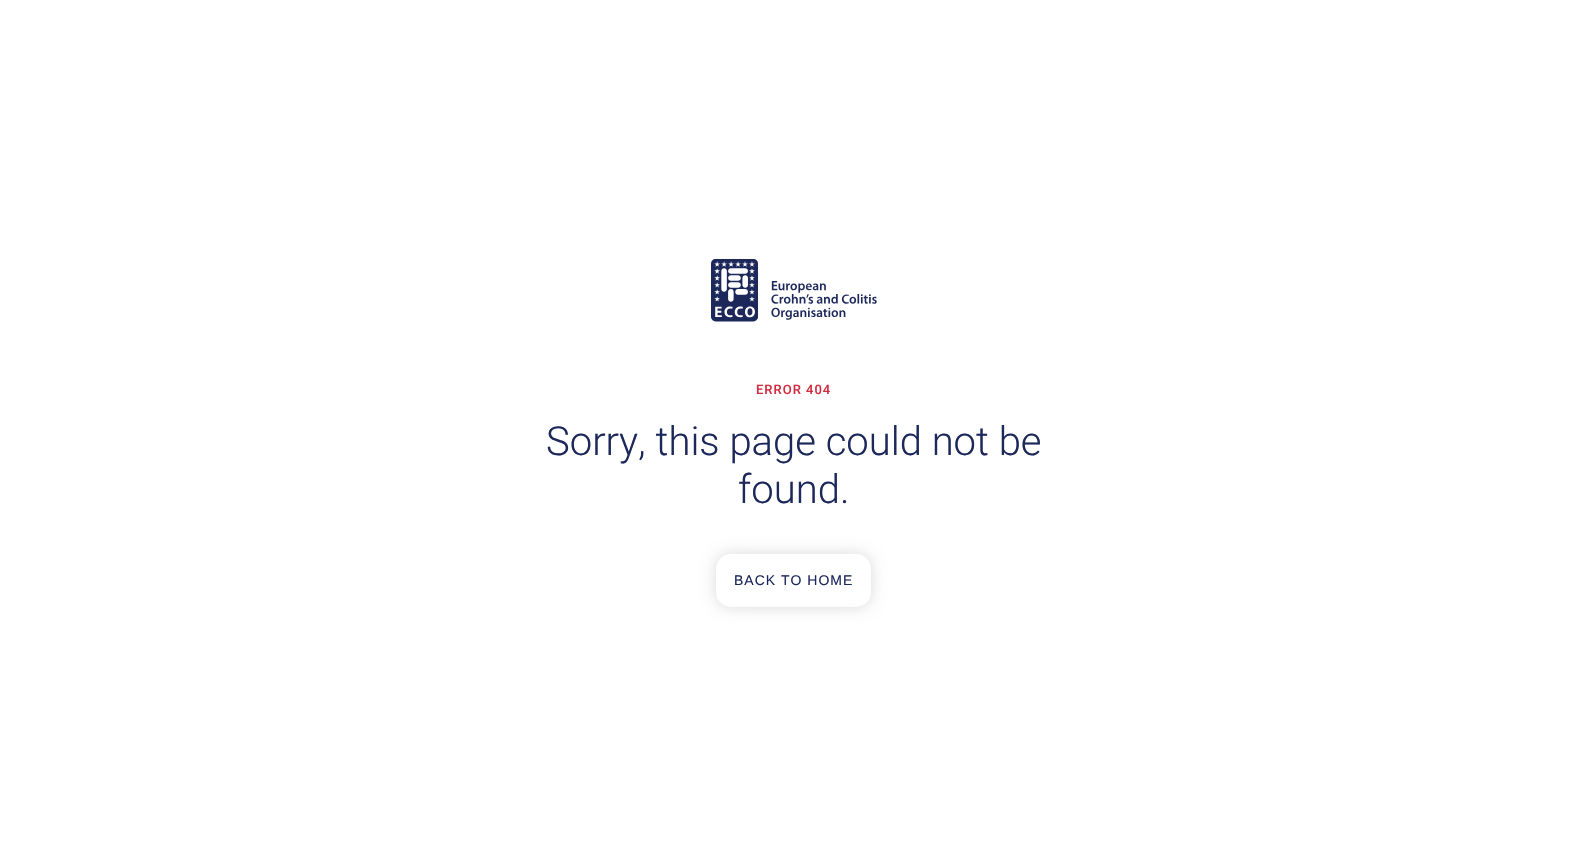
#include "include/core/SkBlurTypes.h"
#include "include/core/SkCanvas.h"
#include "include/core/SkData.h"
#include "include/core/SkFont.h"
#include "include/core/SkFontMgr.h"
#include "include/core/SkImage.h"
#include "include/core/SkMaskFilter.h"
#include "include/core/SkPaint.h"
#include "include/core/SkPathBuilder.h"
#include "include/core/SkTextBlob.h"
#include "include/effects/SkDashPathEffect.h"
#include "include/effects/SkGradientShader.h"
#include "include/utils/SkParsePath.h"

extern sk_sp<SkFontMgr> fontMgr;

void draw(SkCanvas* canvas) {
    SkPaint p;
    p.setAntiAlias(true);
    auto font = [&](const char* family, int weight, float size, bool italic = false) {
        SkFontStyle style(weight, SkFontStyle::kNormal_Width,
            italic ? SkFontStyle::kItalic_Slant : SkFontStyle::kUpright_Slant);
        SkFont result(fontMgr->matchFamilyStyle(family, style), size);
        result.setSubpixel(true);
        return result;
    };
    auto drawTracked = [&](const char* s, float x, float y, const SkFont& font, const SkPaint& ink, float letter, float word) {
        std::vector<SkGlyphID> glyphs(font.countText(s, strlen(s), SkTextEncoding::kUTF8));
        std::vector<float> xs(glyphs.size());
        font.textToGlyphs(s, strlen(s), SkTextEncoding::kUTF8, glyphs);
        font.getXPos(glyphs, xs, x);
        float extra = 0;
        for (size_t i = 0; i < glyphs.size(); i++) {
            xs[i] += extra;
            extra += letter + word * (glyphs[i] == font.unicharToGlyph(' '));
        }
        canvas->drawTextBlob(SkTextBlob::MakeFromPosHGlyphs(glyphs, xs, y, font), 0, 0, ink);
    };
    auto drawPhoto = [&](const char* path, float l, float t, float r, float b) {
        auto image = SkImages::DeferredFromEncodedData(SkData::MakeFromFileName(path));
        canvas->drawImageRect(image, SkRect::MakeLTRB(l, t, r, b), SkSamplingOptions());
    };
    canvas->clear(0xFFFFFFFF);
    drawPhoto("media/1.png", 711, 259, 877, 322);
    auto font1 = font("Roboto", 500, 13);
    p.setColor(0xFFD12D3F);
    drawTracked("ERROR 404", 756, 394, font1, p, 1, 0);
    auto font2 = font("Roboto", 300, 40);
    p.setColor(0xFF1C285A);
    canvas->drawString("Sorry, this page could not be", 546, 455, font2, p);
    canvas->drawString("found.", 738, 503, font2, p);
    p.setColor(0x26000000);
    p.setMaskFilter(SkMaskFilter::MakeBlur(kNormal_SkBlurStyle, 7.5f));
    canvas->drawRoundRect(SkRect::MakeLTRB(716, 554, 871, 607), 15, 15, p);
    p.setMaskFilter(nullptr);
    p.setColor(0xFFFFFFFF);
    canvas->drawRoundRect(SkRect::MakeLTRB(716, 554, 871, 607), 15, 15, p);
    auto font3 = font("Liberation Sans", 400, 14);
    p.setColor(0xFF1C285A);
    drawTracked("BACK TO HOME", 734, 585, font3, p, 1, 0);
}
